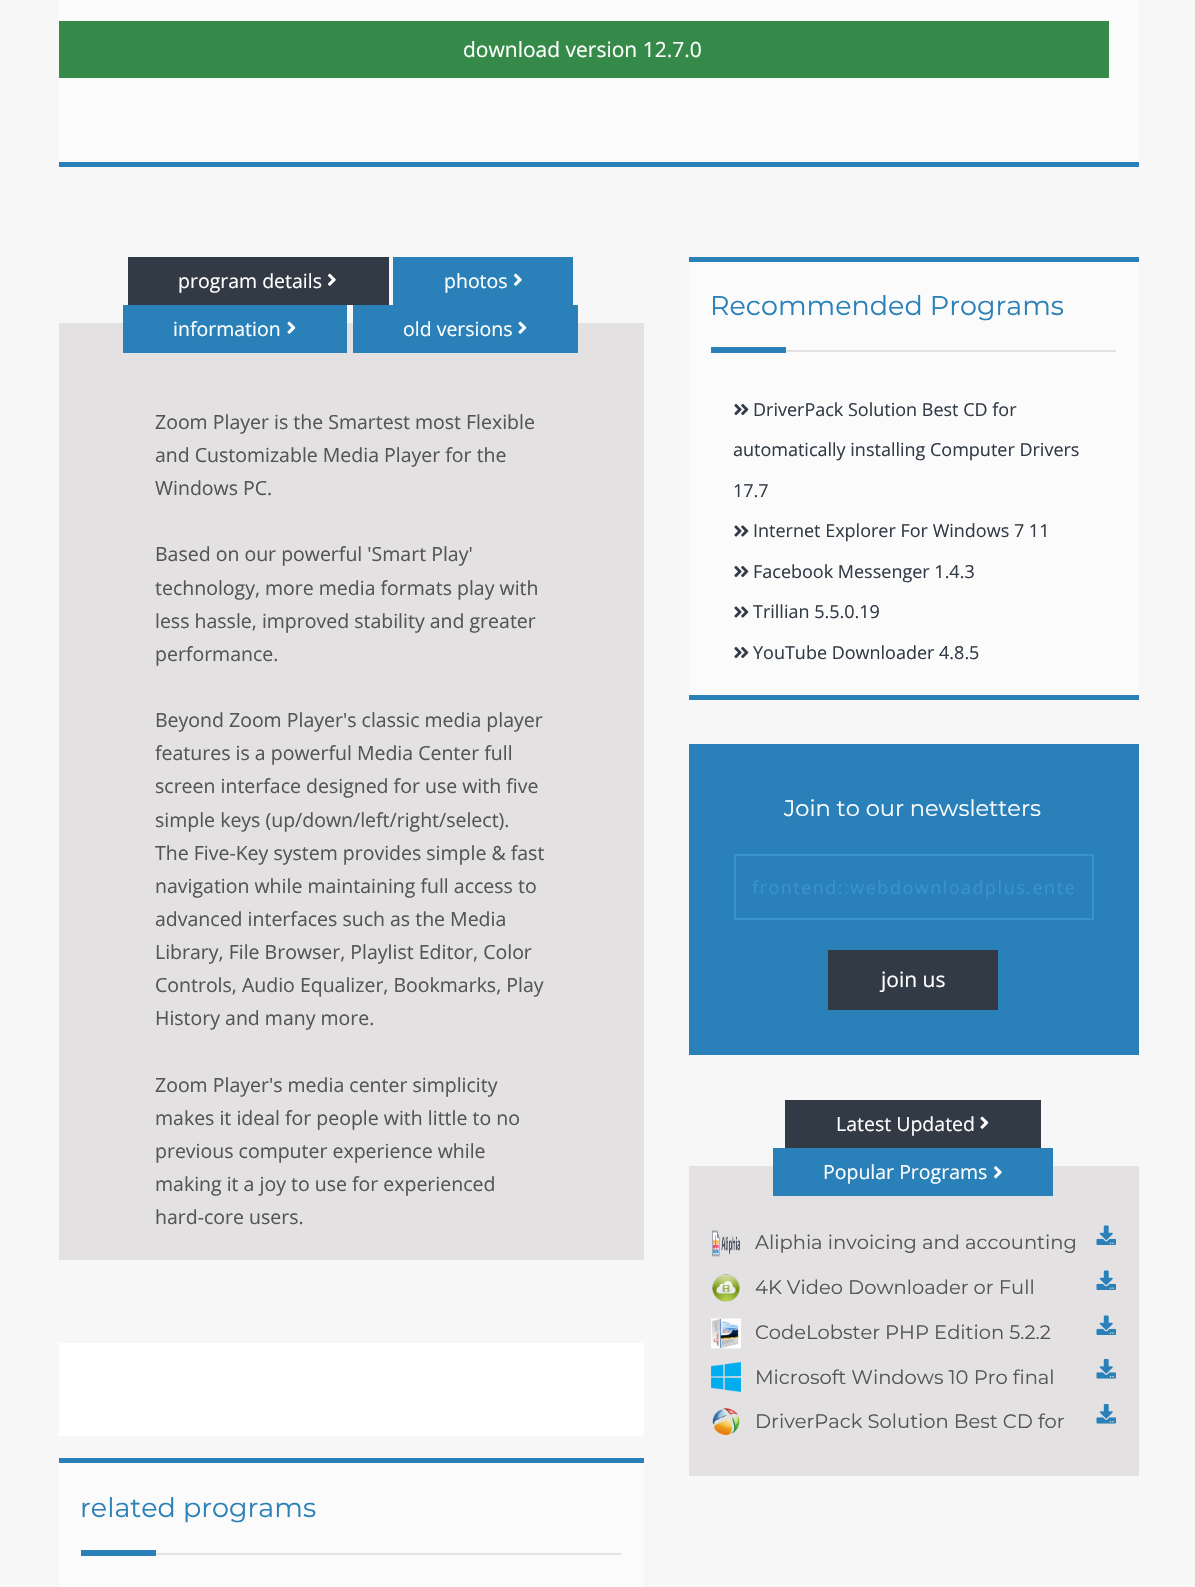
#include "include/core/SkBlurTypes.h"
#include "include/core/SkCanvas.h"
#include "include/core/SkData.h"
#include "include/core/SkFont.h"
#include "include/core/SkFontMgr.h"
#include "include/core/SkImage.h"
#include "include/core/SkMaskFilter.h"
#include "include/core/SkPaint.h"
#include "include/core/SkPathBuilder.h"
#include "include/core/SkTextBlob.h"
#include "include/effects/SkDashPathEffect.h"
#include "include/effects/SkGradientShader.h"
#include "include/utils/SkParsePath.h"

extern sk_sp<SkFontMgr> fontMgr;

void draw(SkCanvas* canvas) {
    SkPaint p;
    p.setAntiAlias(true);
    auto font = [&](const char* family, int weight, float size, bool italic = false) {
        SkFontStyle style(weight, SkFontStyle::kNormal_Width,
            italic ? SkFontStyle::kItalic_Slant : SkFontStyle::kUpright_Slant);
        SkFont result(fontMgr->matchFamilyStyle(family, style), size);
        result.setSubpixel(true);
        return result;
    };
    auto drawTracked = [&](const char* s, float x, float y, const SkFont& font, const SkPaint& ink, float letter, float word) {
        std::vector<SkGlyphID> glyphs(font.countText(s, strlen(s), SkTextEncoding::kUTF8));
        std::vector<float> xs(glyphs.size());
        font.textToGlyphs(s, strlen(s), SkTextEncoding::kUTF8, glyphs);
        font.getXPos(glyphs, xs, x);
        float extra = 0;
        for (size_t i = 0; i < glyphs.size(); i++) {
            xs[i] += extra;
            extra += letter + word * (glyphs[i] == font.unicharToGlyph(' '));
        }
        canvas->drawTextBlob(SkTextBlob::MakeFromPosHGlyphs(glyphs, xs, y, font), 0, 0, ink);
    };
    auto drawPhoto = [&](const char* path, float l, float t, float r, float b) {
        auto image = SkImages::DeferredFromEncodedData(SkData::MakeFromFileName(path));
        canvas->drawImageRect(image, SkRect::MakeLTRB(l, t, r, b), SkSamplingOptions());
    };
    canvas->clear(0xFFF7F7F7);
    {
        const struct { float l, t, r, b; SkColor color; } items[] = {
            {59, 0, 1139, 162, 0xFFFBFBFB},
            {59, 162, 1139, 167, 0xFF2A80B9},
            {59, 21, 1109, 78, 0xFF358A49},
        };
        for (auto [l, t, r, b, color] : items) {
            p.setColor(color);
            canvas->drawRect(SkRect::MakeLTRB(l, t, r, b), p);
        }
    }
    auto font1 = font("Open Sans", 400, 21);
    p.setColor(0xFFFFFFFF);
    canvas->drawString("download version 12.7.0", 463, 57, font1, p);
    p.setColor(0xFF323A45);
    canvas->drawRect(SkRect::MakeLTRB(128, 257, 389, 305), p);
    auto font2 = font("Open Sans", 400, 19.5f);
    p.setColor(0xFFFFFFFF);
    canvas->drawString("program details", 178, 288, font2, p);
    drawPhoto("media/1.png", 328, 273, 336, 286);
    p.setColor(0xFF2A80B9);
    canvas->drawRect(SkRect::MakeLTRB(393, 257, 573, 305), p);
    p.setColor(0xFFFFFFFF);
    canvas->drawString("photos", 444, 288, font2, p);
    drawPhoto("media/2.png", 514, 273, 522, 286);
    p.setColor(0xFFE3E1E1);
    canvas->drawRect(SkRect::MakeLTRB(59, 323, 644, 1260), p);
    p.setColor(0xFF2A80B9);
    canvas->drawRect(SkRect::MakeLTRB(123, 305, 347, 353), p);
    p.setColor(0xFFFFFFFF);
    canvas->drawString("information", 173, 336, font2, p);
    drawPhoto("media/3.png", 287, 321, 296, 334);
    p.setColor(0xFF2A80B9);
    canvas->drawRect(SkRect::MakeLTRB(353, 305, 578, 353), p);
    p.setColor(0xFFFFFFFF);
    canvas->drawString("old versions", 403, 336, font2, p);
    drawPhoto("media/3.png", 518, 321, 527, 334);
    p.setColor(0xFF555555);
    {
        const struct { const char* s; float x, y; } items[] = {
            {"Zoom Player is the Smartest most Flexible", 155, 429},
            {"and Customizable Media Player for the", 155, 462},
            {"Windows PC.", 155, 495},
            {"Based on our powerful 'Smart Play'", 155, 561},
            {"technology, more media formats play with", 155, 595},
            {"less hassle, improved stability and greater", 155, 628},
            {"performance.", 155, 661},
            {"Beyond Zoom Player's classic media player", 155, 727},
            {"features is a powerful Media Center full", 155, 760},
            {"screen interface designed for use with five", 155, 793},
            {"simple keys (up/down/left/right/select).", 155, 827},
            {"The Five-Key system provides simple & fast", 155, 860},
            {"navigation while maintaining full access to", 155, 893},
            {"advanced interfaces such as the Media", 155, 926},
            {"Library, File Browser, Playlist Editor, Color", 155, 959},
            {"Controls, Audio Equalizer, Bookmarks, Play", 155, 992},
            {"History and many more.", 155, 1025},
            {"Zoom Player's media center simplicity", 155, 1092},
            {"makes it ideal for people with little to no", 155, 1125},
            {"previous computer experience while", 155, 1158},
            {"making it a joy to use for experienced", 155, 1191},
            {"hard-core users.", 155, 1224},
        };
        for (auto [s, x, y] : items) {
            canvas->drawString(s, x, y, font2, p);
        }
    }
    {
        const struct { float l, t, r, b; SkColor color; } items[] = {
            {59, 1343, 644, 1436, 0xFFFFFFFF},
            {59, 1463, 644, 1587, 0xFFFBFBFB},
            {59, 1458, 644, 1463, 0xFF2A80B9},
        };
        for (auto [l, t, r, b, color] : items) {
            p.setColor(color);
            canvas->drawRect(SkRect::MakeLTRB(l, t, r, b), p);
        }
    }
    auto font3 = font("Montserrat", 400, 27);
    canvas->drawString("related programs", 80, 1517, font3, p);
    {
        const struct { float l, t, r, b; SkColor color; } items[] = {
            {81, 1550, 156, 1556, 0xFF2A80B9},
            {156, 1553, 621, 1555, 0xFFE3E1E1},
            {689, 262, 1139, 695, 0xFFFBFBFB},
            {689, 257, 1139, 262, 0xFF2A80B9},
            {689, 695, 1139, 700, 0xFF2A80B9},
        };
        for (auto [l, t, r, b, color] : items) {
            p.setColor(color);
            canvas->drawRect(SkRect::MakeLTRB(l, t, r, b), p);
        }
    }
    canvas->drawString("Recommended Programs", 710, 315, font3, p);
    canvas->drawRect(SkRect::MakeLTRB(711, 347, 786, 353), p);
    p.setColor(0xFFE3E1E1);
    canvas->drawRect(SkRect::MakeLTRB(786, 350, 1116, 352), p);
    drawPhoto("media/4.png", 734, 403, 749, 416);
    auto font4 = font("Open Sans", 400, 18);
    p.setColor(0xFF323A45);
    {
        const struct { const char* s; float x, y; } items[] = {
            {"DriverPack Solution Best CD for", 753, 416},
            {"automatically installing Computer Drivers", 733, 456},
            {"17.7", 733, 497},
        };
        for (auto [s, x, y] : items) {
            canvas->drawString(s, x, y, font4, p);
        }
    }
    drawPhoto("media/5.png", 734, 525, 749, 537);
    canvas->drawString("Internet Explorer For Windows 7 11", 753, 537, font4, p);
    drawPhoto("media/4.png", 734, 565, 749, 578);
    canvas->drawString("Facebook Messenger 1.4.3", 753, 578, font4, p);
    drawPhoto("media/5.png", 734, 606, 749, 618);
    canvas->drawString("Trillian 5.5.0.19", 753, 618, font4, p);
    drawPhoto("media/4.png", 734, 646, 749, 659);
    canvas->drawString("YouTube Downloader 4.8.5", 753, 659, font4, p);
    p.setColor(0xFF2A80B9);
    canvas->drawRect(SkRect::MakeLTRB(689, 744, 1139, 1055), p);
    auto font5 = font("Montserrat", 400, 22.5f);
    p.setColor(0xFFFFFFFF);
    canvas->drawString("Join to our newsletters", 784, 816, font5, p);
    p.setStyle(SkPaint::kStroke_Style);
    p.setStrokeWidth(2);
    p.setColor(0xFF3B93CD);
    canvas->drawRect(SkRect::MakeLTRB(735, 855, 1093, 919), p);
    p.setStyle(SkPaint::kFill_Style);
    drawTracked("frontend::webdownloadplus.ente", 752, 894, font4, p, 1.5f, 0);
    p.setColor(0xFF323A45);
    canvas->drawRect(SkRect::MakeLTRB(828, 950, 998, 1010), p);
    p.setColor(0xFFFFFFFF);
    canvas->drawString("join us", 881, 987, font1, p);
    p.setColor(0xFF323A45);
    canvas->drawRect(SkRect::MakeLTRB(785, 1100, 1041, 1148), p);
    p.setColor(0xFFFFFFFF);
    canvas->drawString("Latest Updated", 836, 1131, font2, p);
    drawPhoto("media/6.png", 980, 1116, 989, 1129);
    p.setColor(0xFFE3E1E1);
    canvas->drawRect(SkRect::MakeLTRB(689, 1166, 1139, 1476), p);
    p.setColor(0xFF2A80B9);
    canvas->drawRect(SkRect::MakeLTRB(773, 1148, 1053, 1196), p);
    p.setColor(0xFFFFFFFF);
    canvas->drawString("Popular Programs", 823, 1179, font2, p);
    drawPhoto("media/7.png", 994, 1166, 1002, 1179);
    drawPhoto("media/8.png", 712, 1230, 741, 1257);
    auto font6 = font("Montserrat", 400, 19.5f);
    p.setColor(0xFF555555);
    canvas->drawString("Aliphia invoicing and accounting", 755, 1249, font6, p);
    drawPhoto("media/9.png", 1096, 1225, 1116, 1245);
    drawPhoto("media/10.png", 711, 1274, 740, 1302);
    canvas->drawString("4K Video Downloader or Full", 755, 1294, font6, p);
    drawPhoto("media/9.png", 1096, 1270, 1116, 1290);
    drawPhoto("media/11.png", 711, 1318, 741, 1349);
    canvas->drawString("CodeLobster PHP Edition 5.2.2", 755, 1339, font6, p);
    drawPhoto("media/9.png", 1096, 1315, 1116, 1335);
    drawPhoto("media/12.png", 711, 1362, 741, 1392);
    canvas->drawString("Microsoft Windows 10 Pro final", 755, 1384, font6, p);
    drawPhoto("media/13.png", 1096, 1359, 1116, 1379);
    drawPhoto("media/14.png", 712, 1407, 740, 1435);
    canvas->drawString("DriverPack Solution Best CD for", 755, 1428, font6, p);
    drawPhoto("media/13.png", 1096, 1404, 1116, 1424);
}
